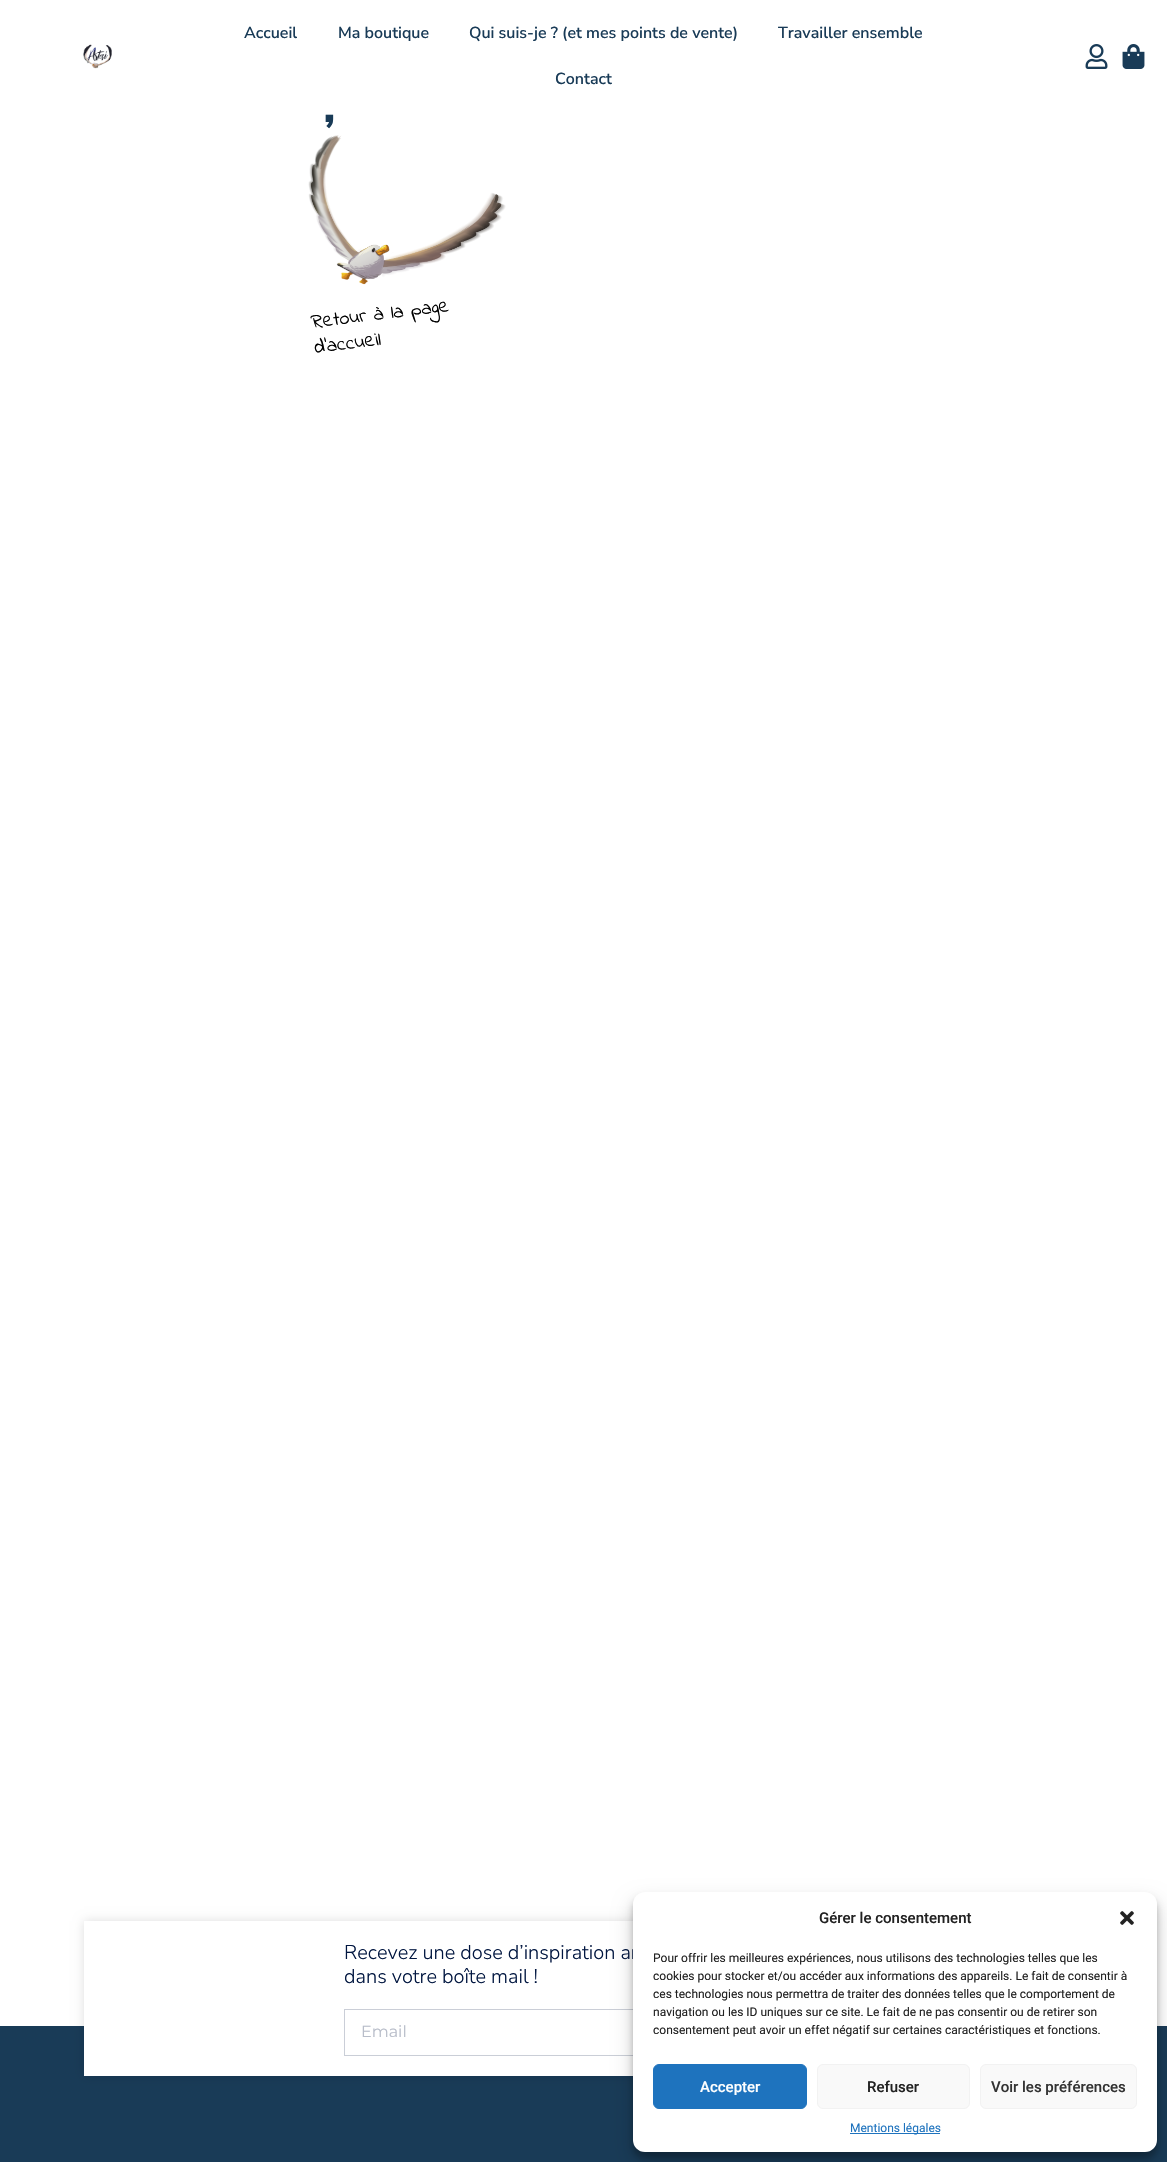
#include "include/core/SkBlurTypes.h"
#include "include/core/SkCanvas.h"
#include "include/core/SkData.h"
#include "include/core/SkFont.h"
#include "include/core/SkFontMgr.h"
#include "include/core/SkImage.h"
#include "include/core/SkMaskFilter.h"
#include "include/core/SkPaint.h"
#include "include/core/SkPathBuilder.h"
#include "include/core/SkTextBlob.h"
#include "include/effects/SkDashPathEffect.h"
#include "include/effects/SkGradientShader.h"
#include "include/utils/SkParsePath.h"

extern sk_sp<SkFontMgr> fontMgr;

void draw(SkCanvas* canvas) {
    SkPaint p;
    p.setAntiAlias(true);
    auto font = [&](const char* family, int weight, float size, bool italic = false) {
        SkFontStyle style(weight, SkFontStyle::kNormal_Width,
            italic ? SkFontStyle::kItalic_Slant : SkFontStyle::kUpright_Slant);
        SkFont result(fontMgr->matchFamilyStyle(family, style), size);
        result.setSubpixel(true);
        return result;
    };
    auto drawPhoto = [&](const char* path, float l, float t, float r, float b) {
        auto image = SkImages::DeferredFromEncodedData(SkData::MakeFromFileName(path));
        canvas->drawImageRect(image, SkRect::MakeLTRB(l, t, r, b), SkSamplingOptions());
    };
    canvas->clear(0xFFFFFFFF);
    drawPhoto("media/1.png", 83, 44, 112, 69);
    auto font1 = font("Nunito Sans", 600, 16);
    p.setColor(0xFF193B57);
    {
        const struct { const char* s; float x, y; } items[] = {
            {"Accueil", 244, 38},
            {"Ma boutique", 338, 38},
            {"Qui suis-je ? (et mes points de vente)", 469, 38},
            {"Travailler ensemble", 778, 38},
            {"Contact", 555, 84},
        };
        for (auto [s, x, y] : items) {
            canvas->drawString(s, x, y, font1, p);
        }
    }
    drawPhoto("media/2.png", 1085, 44, 1108, 69);
    drawPhoto("media/3.png", 1122, 44, 1145, 69);
    auto font2 = font("Nunito Sans", 900, 40);
    canvas->drawString(",", 324, 122, font2, p);
    drawPhoto("media/4.png", 308, 135, 506, 285);
    auto font3 = font("Indie Flower", 400, 20);
    p.setColor(0xFF000000);
    canvas->save();
    canvas->rotate(-7, 312, 328);
    canvas->drawString("Retour à la page", 312, 328, font3, p);
    canvas->restore();
    canvas->save();
    canvas->rotate(-7, 315, 353);
    canvas->drawString("d'accueil", 315, 353, font3, p);
    canvas->restore();
    p.setColor(0xFF193B57);
    canvas->drawRect(SkRect::MakeLTRB(0, 2026, 1167, 2162), p);
    p.setColor(0x21000000);
    p.setMaskFilter(SkMaskFilter::MakeBlur(kNormal_SkBlurStyle, 5));
    canvas->drawRect(SkRect::MakeLTRB(84, 1921, 1084, 2076), p);
    p.setMaskFilter(nullptr);
    p.setColor(0xFFFFFFFF);
    canvas->drawRect(SkRect::MakeLTRB(84, 1921, 633, 2076), p);
    auto font4 = font("Nunito Sans", 300, 20);
    p.setColor(0xFF011640);
    canvas->drawString("Recevez une dose d’inspiration ar", 344, 1959, font4, p);
    canvas->drawString("dans votre boîte mail !", 344, 1983, font4, p);
    p.setStyle(SkPaint::kStroke_Style);
    p.setStrokeWidth(1);
    p.setColor(0xFFCACED7);
    canvas->drawRect(SkRect::MakeLTRB(344.5f, 2009.5f, 657.5f, 2055.5f), p);
    auto font5 = font("Montserrat", 400, 16);
    p.setStyle(SkPaint::kFill_Style);
    p.setColor(0xFFB8BDC9);
    canvas->drawString("Email", 361, 2037, font5, p);
    p.setColor(0x3B000000);
    p.setMaskFilter(SkMaskFilter::MakeBlur(kNormal_SkBlurStyle, 3));
    canvas->drawRoundRect(SkRect::MakeLTRB(633, 1898, 1157, 2158), 12, 12, p);
    p.setMaskFilter(nullptr);
    p.setColor(0x30000000);
    p.setMaskFilter(SkMaskFilter::MakeBlur(kNormal_SkBlurStyle, 10));
    canvas->drawRoundRect(SkRect::MakeLTRB(633, 1902, 1157, 2162), 12, 12, p);
    p.setMaskFilter(nullptr);
    p.setColor(0xFFFFFFFF);
    canvas->drawRoundRect(SkRect::MakeLTRB(633, 1892, 1157, 2152), 12, 12, p);
    auto font6 = font("Roboto", 500, 15);
    p.setColor(0xFF222222);
    canvas->drawString("Gérer le consentement", 819, 1923, font6, p);
    drawPhoto("media/5.png", 1120, 1911, 1134, 1925);
    auto font7 = font("Roboto", 400, 12);
    {
        const struct { const char* s; float x, y; } items[] = {
            {"Pour offrir les meilleures expériences, nous utilisons des technologies telles que les", 653, 1962},
            {"cookies pour stocker et/ou accéder aux informations des appareils. Le fait de consentir à", 653, 1980},
            {"ces technologies nous permettra de traiter des données telles que le comportement de", 653, 1998},
            {"navigation ou les ID uniques sur ce site. Le fait de ne pas consentir ou de retirer son", 653, 2016},
            {"consentement peut avoir un effet négatif sur certaines caractéristiques et fonctions.", 653, 2034},
        };
        for (auto [s, x, y] : items) {
            canvas->drawString(s, x, y, font7, p);
        }
    }
    p.setColor(0xFF1E73BE);
    canvas->drawRoundRect(SkRect::MakeLTRB(653.5f, 2064.5f, 806.5f, 2108.5f), 5.5f, 5.5f, p);
    p.setStyle(SkPaint::kStroke_Style);
    canvas->drawRoundRect(SkRect::MakeLTRB(653.5f, 2064.5f, 806.5f, 2108.5f), 5.5f, 5.5f, p);
    p.setStyle(SkPaint::kFill_Style);
    p.setColor(0xFFFFFFFF);
    canvas->drawString("Accepter", 700, 2092, font6, p);
    p.setColor(0xFFF9F9F9);
    canvas->drawRoundRect(SkRect::MakeLTRB(817.5f, 2064.5f, 969.5f, 2108.5f), 5.5f, 5.5f, p);
    p.setStyle(SkPaint::kStroke_Style);
    p.setColor(0xFFF2F2F2);
    canvas->drawRoundRect(SkRect::MakeLTRB(817.5f, 2064.5f, 969.5f, 2108.5f), 5.5f, 5.5f, p);
    p.setStyle(SkPaint::kFill_Style);
    p.setColor(0xFF222222);
    canvas->drawString("Refuser", 867, 2092, font6, p);
    p.setColor(0xFFF9F9F9);
    canvas->drawRoundRect(SkRect::MakeLTRB(980.5f, 2064.5f, 1136.5f, 2108.5f), 5.5f, 5.5f, p);
    p.setStyle(SkPaint::kStroke_Style);
    p.setColor(0xFFF2F2F2);
    canvas->drawRoundRect(SkRect::MakeLTRB(980.5f, 2064.5f, 1136.5f, 2108.5f), 5.5f, 5.5f, p);
    p.setStyle(SkPaint::kFill_Style);
    p.setColor(0xFF333333);
    canvas->drawString("Voir les préférences", 991, 2092, font6, p);
    p.setColor(0xFF1E73BE);
    canvas->drawRect(SkRect::MakeLTRB(850, 2133, 940, 2134), p);
    canvas->drawString("Mentions légales", 850, 2132, font7, p);
}
